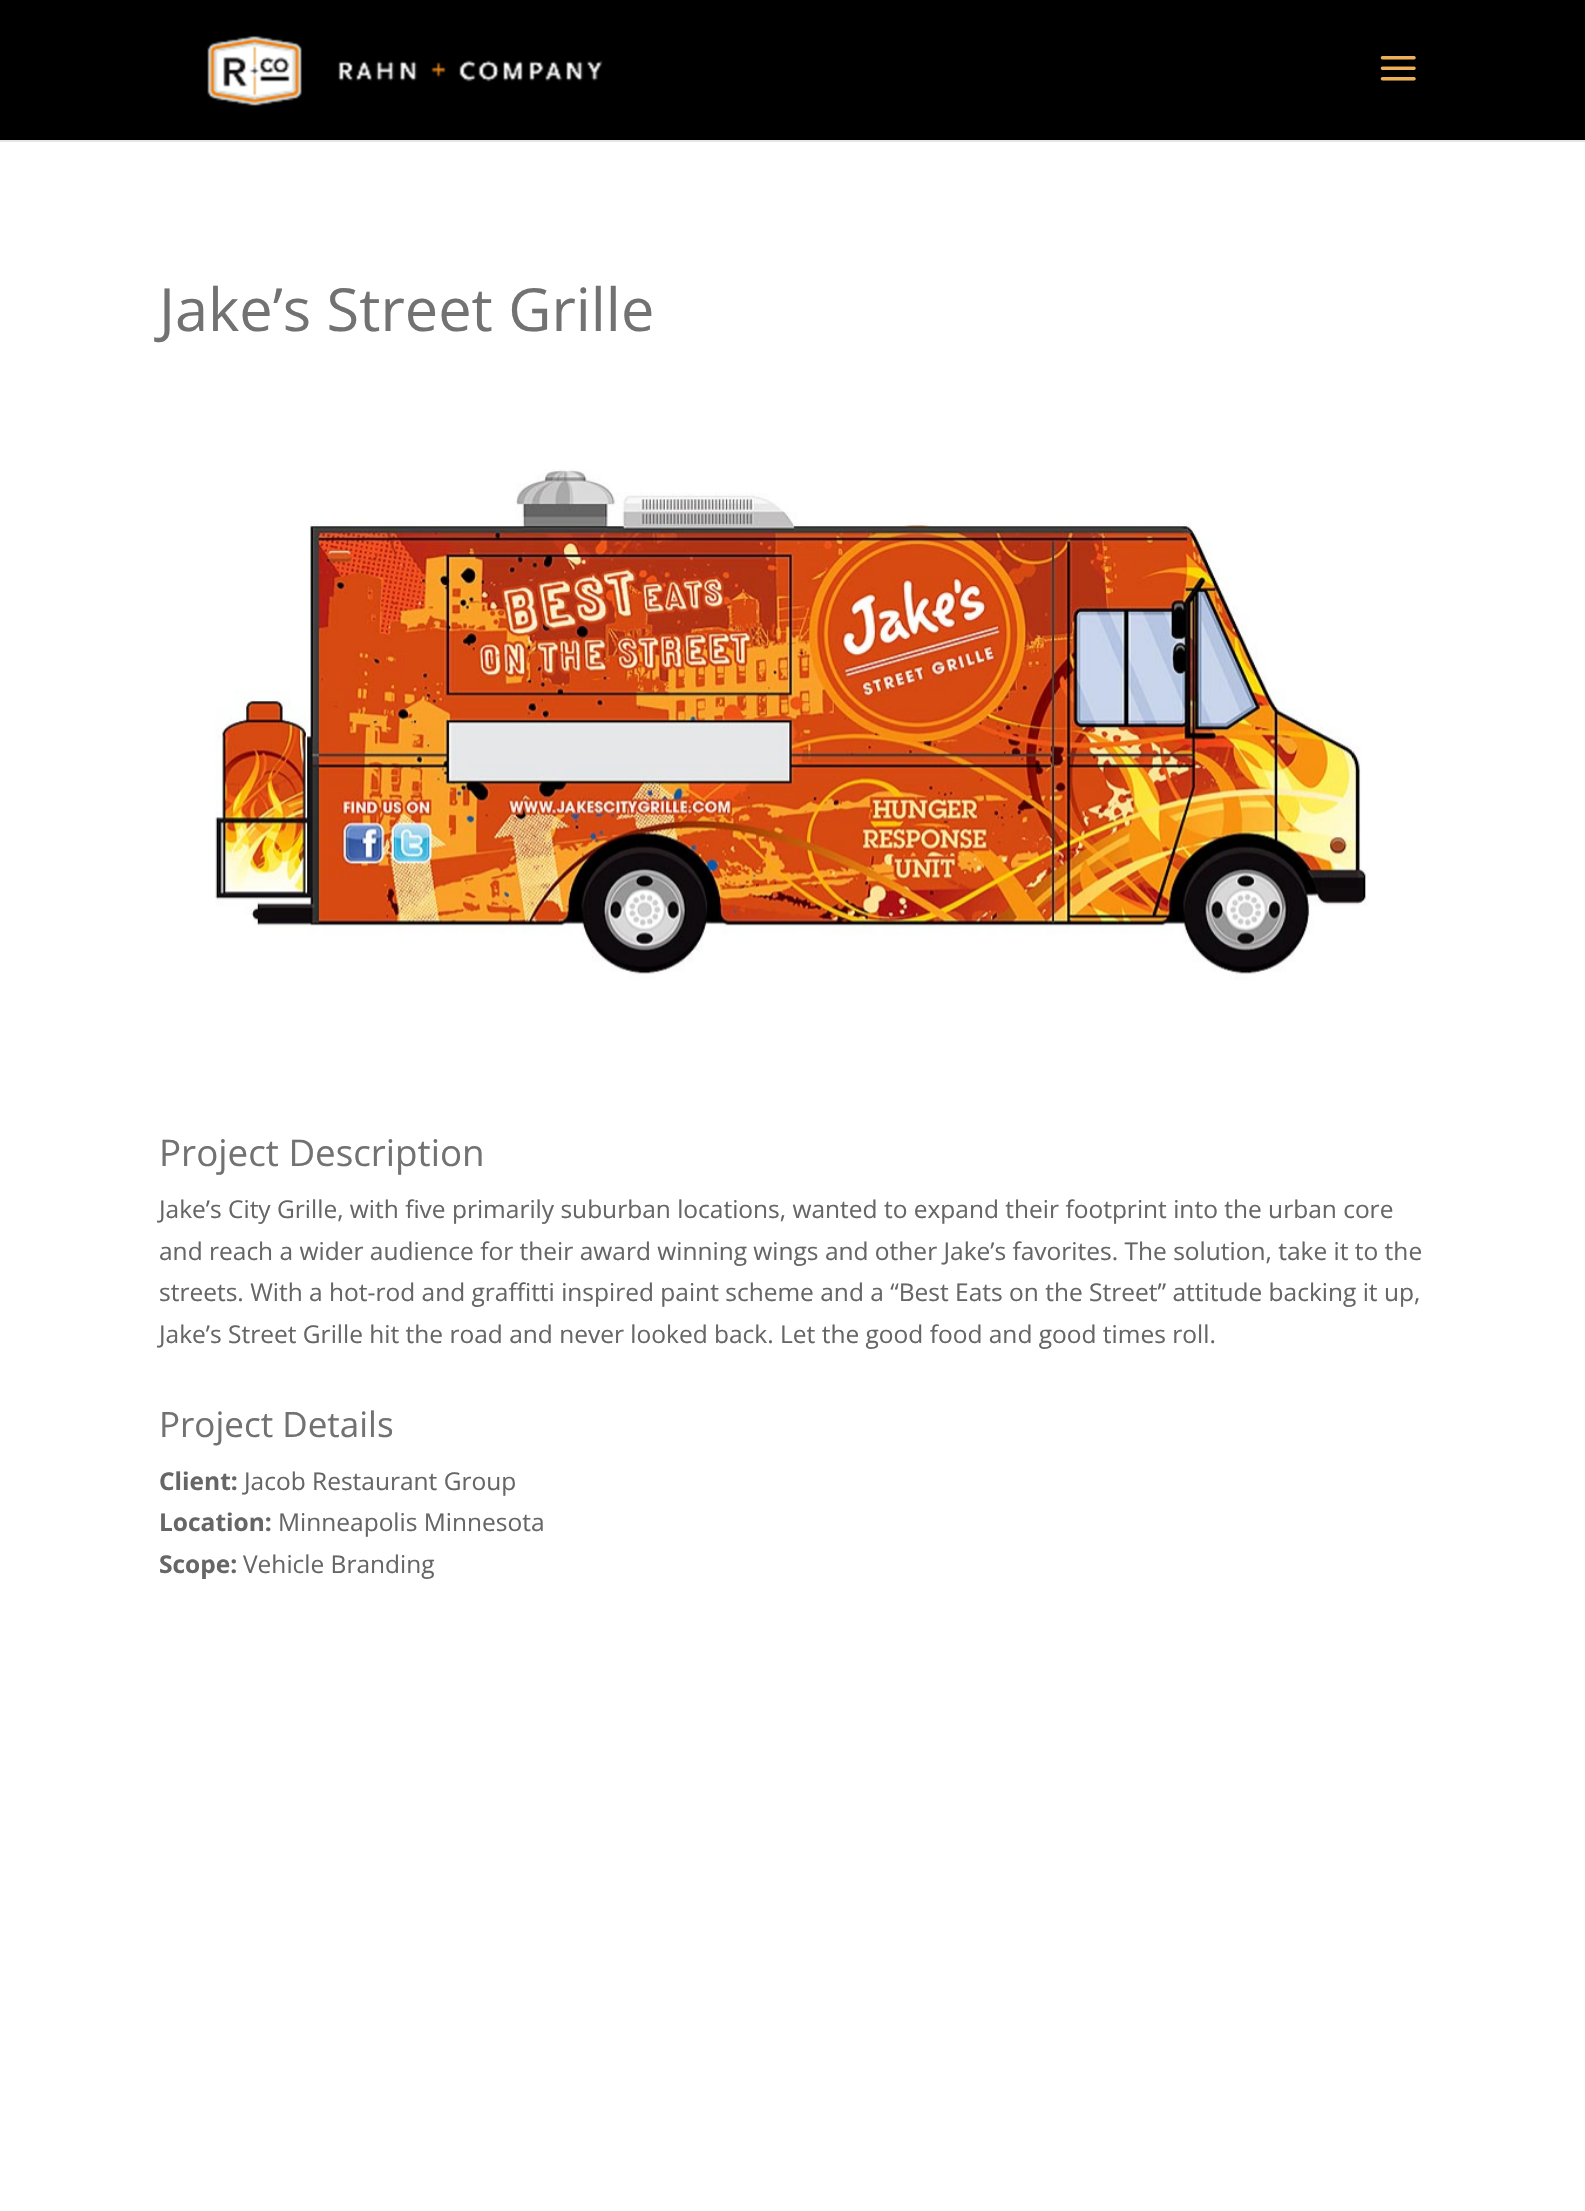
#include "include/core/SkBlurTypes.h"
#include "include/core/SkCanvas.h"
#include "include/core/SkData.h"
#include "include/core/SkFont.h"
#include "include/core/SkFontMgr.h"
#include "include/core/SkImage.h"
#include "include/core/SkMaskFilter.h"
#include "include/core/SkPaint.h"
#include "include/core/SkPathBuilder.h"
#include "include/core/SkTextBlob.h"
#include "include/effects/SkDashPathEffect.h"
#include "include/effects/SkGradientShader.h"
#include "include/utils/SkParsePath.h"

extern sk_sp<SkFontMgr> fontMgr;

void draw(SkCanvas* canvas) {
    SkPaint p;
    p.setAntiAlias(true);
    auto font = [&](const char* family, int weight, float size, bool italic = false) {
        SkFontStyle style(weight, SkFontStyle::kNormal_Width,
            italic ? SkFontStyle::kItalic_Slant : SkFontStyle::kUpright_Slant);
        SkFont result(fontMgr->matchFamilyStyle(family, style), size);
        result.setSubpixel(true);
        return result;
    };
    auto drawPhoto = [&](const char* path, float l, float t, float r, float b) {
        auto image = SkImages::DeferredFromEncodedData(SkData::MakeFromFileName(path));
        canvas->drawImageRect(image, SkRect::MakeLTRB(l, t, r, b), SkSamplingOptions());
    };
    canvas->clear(0xFFFFFFFF);
    p.setColor(0xFFE6E6E6);
    canvas->drawPath(SkPathBuilder().moveTo(0, 140).lineTo(0, 142).lineTo(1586, 142).lineTo(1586, 2).lineTo(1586, 140).close().detach(), p);
    p.setColor(0xFF000000);
    canvas->drawRect(SkRect::MakeLTRB(0, 0, 1585, 140), p);
    drawPhoto("media/1.png", 207, 35, 603, 106);
    drawPhoto("media/2.png", 1380, 56, 1416, 81);
    auto font1 = font("Open Sans", 400, 59.5f);
    p.setColor(0xFF727272);
    canvas->drawString("Jake’s Street Grille", 159, 331, font1, p);
    drawPhoto("media/3.png", 215, 469, 1369, 980);
    auto font2 = font("Open Sans", 400, 36.75f);
    canvas->drawString("Project Description", 159, 1166, font2, p);
    auto font3 = font("Open Sans", 400, 24.5f);
    p.setColor(0xFF666666);
    {
        const struct { const char* s; float x, y; } items[] = {
            {"Jake’s City Grille, with five primarily suburban locations, wanted to expand their footprint into the urban core", 159, 1218},
            {"and reach a wider audience for their award winning wings and other Jake’s favorites. The solution, take it to the", 159, 1260},
            {"streets. With a hot-rod and graffitti inspired paint scheme and a “Best Eats on the Street” attitude backing it up,", 159, 1301},
            {"Jake’s Street Grille hit the road and never looked back. Let the good food and good times roll.", 159, 1343},
        };
        for (auto [s, x, y] : items) {
            canvas->drawString(s, x, y, font3, p);
        }
    }
    auto font4 = font("Open Sans", 400, 35);
    p.setColor(0xFF727272);
    canvas->drawString("Project Details", 159, 1437, font4, p);
    auto font5 = font("Open Sans", 700, 24.5f);
    p.setColor(0xFF666666);
    canvas->drawString("Client:", 159, 1490, font5, p);
    canvas->drawString("Jacob Restaurant Group", 244, 1490, font3, p);
    canvas->drawString("Location:", 159, 1531, font5, p);
    canvas->drawString("Minneapolis Minnesota", 278, 1531, font3, p);
    canvas->drawString("Scope:", 159, 1573, font5, p);
    canvas->drawString("Vehicle Branding", 243, 1573, font3, p);
}
